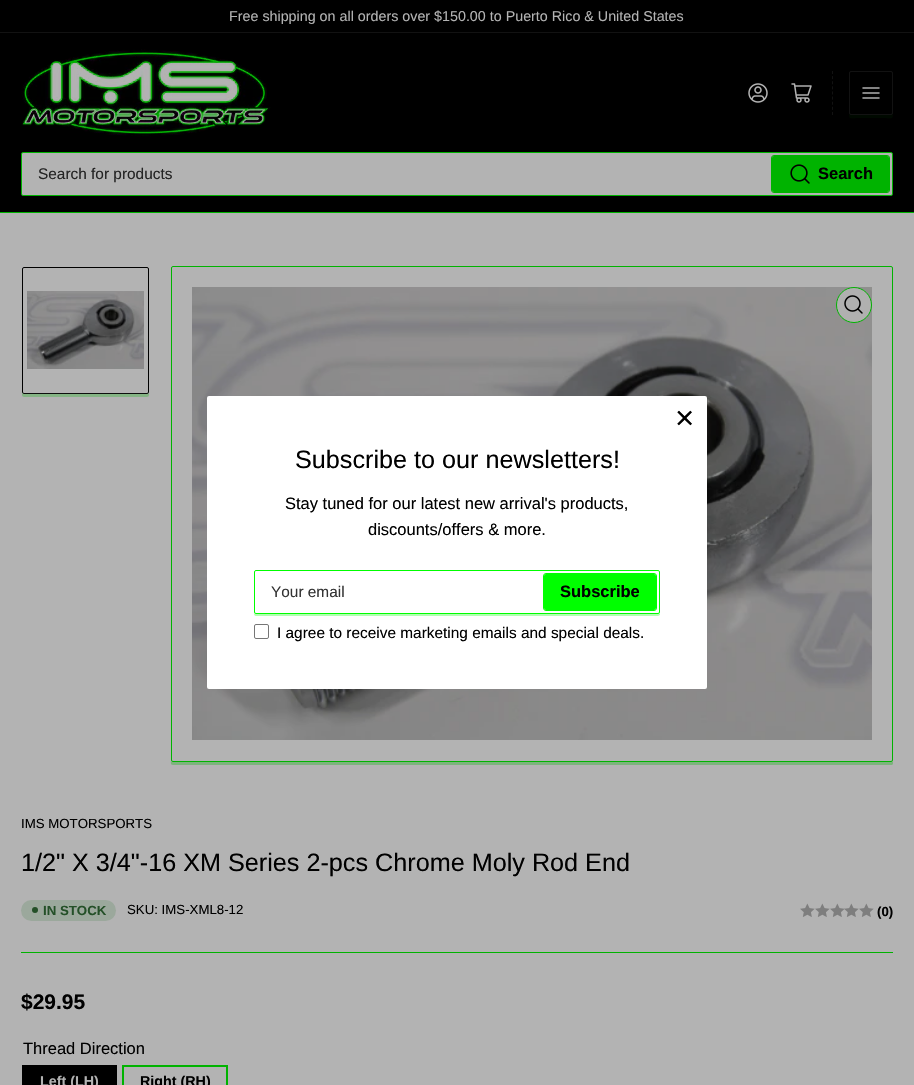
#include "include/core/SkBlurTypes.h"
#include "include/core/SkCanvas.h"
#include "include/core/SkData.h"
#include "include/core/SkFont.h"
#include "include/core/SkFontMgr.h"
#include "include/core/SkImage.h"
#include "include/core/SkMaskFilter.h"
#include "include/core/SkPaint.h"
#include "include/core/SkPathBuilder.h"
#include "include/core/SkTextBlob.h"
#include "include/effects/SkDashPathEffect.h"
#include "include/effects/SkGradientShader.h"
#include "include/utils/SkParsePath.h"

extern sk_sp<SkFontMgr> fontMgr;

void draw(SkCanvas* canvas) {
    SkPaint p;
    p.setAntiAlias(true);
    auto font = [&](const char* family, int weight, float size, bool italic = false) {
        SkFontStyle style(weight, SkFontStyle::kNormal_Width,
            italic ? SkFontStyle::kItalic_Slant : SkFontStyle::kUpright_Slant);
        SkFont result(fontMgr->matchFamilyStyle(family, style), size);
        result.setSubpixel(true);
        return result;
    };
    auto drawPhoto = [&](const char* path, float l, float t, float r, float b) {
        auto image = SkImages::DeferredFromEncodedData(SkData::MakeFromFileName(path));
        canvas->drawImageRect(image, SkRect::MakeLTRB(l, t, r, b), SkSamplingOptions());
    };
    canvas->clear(0xFFB3B3B3);
    p.setColor(0xFF000000);
    canvas->drawRect(SkRect::MakeLTRB(0, 0, 914, 32), p);
    p.setColor(0xFF121212);
    canvas->drawRect(SkRect::MakeLTRB(0, 32, 914, 33), p);
    auto font1 = font("Liberation Sans", 400, 14.3f);
    p.setColor(0xFFB3B3B3);
    canvas->drawString("Free shipping on all orders over $150.00 to Puerto Rico & United States", 229, 21, font1, p);
    p.setColor(0xFF00B300);
    canvas->drawRect(SkRect::MakeLTRB(0, 212, 914, 213), p);
    p.setColor(0xFF000000);
    canvas->drawRect(SkRect::MakeLTRB(0, 33, 914, 212), p);
    drawPhoto("media/1.png", 21, 49, 271, 137);
    drawPhoto("media/2.png", 748, 83, 768, 103);
    drawPhoto("media/3.png", 791, 83, 812, 103);
    p.setStyle(SkPaint::kStroke_Style);
    p.setStrokeWidth(1);
    p.setColor(0xFF121212);
    p.setPathEffect(SkDashPathEffect::Make({{3, 2.12f}}, 0));
    canvas->drawPath(SkPathBuilder().moveTo(832.5f, 71).lineTo(832.5f, 115).detach(), p);
    p.setPathEffect(nullptr);
    p.setStyle(SkPaint::kFill_Style);
    p.setColor(0xFF000900);
    canvas->drawPath(SkPathBuilder().moveTo(849, 113).cubicTo(849, 120, 850, 118, 858, 118).lineTo(884, 118).cubicTo(892, 118, 893, 120, 893, 113).cubicTo(893, 114, 892, 115, 891, 115).lineTo(851, 115).cubicTo(850, 115, 849, 114, 849, 113).close().detach(), p);
    p.setStyle(SkPaint::kStroke_Style);
    p.setColor(0xFF121212);
    canvas->drawRoundRect(SkRect::MakeLTRB(849.5f, 71.5f, 892.5f, 114.5f), 1.5f, 1.5f, p);
    drawPhoto("media/4.png", 862, 87, 880, 99);
    p.setStyle(SkPaint::kFill_Style);
    p.setColor(0xFFB3B3B3);
    canvas->drawRoundRect(SkRect::MakeLTRB(21.5f, 152.5f, 892.5f, 195.5f), 1.5f, 1.5f, p);
    p.setStyle(SkPaint::kStroke_Style);
    p.setColor(0xFF00B300);
    canvas->drawRoundRect(SkRect::MakeLTRB(21.5f, 152.5f, 892.5f, 195.5f), 1.5f, 1.5f, p);
    auto font2 = font("Liberation Sans", 400, 15.4f);
    p.setStyle(SkPaint::kFill_Style);
    p.setColor(0xFF242424);
    canvas->drawString("Search for products", 38, 179, font2, p);
    p.setStyle(SkPaint::kStroke_Style);
    p.setColor(0xFF00B300);
    canvas->drawRoundRect(SkRect::MakeLTRB(771.5f, 155.5f, 889.5f, 192.5f), 2.5f, 2.5f, p);
    p.setStyle(SkPaint::kFill_Style);
    canvas->drawRoundRect(SkRect::MakeLTRB(772, 156, 889, 192), 2, 2, p);
    drawPhoto("media/5.png", 790, 164, 810, 184);
    auto font3 = font("Liberation Sans", 700, 16.5f);
    p.setColor(0xFF000000);
    canvas->drawString("Search", 818, 179, font3, p);
    p.setColor(0xFF7DB37D);
    canvas->drawPath(SkPathBuilder().moveTo(171, 760).cubicTo(171, 762, 170, 765, 173, 765).lineTo(892, 765).lineTo(893, 764).lineTo(893, 760).cubicTo(893, 761, 892, 762, 891, 762).lineTo(173, 762).cubicTo(172, 762, 171, 761, 171, 760).close().detach(), p);
    p.setColor(0xFFB3B3B3);
    canvas->drawRoundRect(SkRect::MakeLTRB(171.5f, 266.5f, 892.5f, 761.5f), 1.5f, 1.5f, p);
    p.setStyle(SkPaint::kStroke_Style);
    p.setColor(0xFF00B300);
    canvas->drawRoundRect(SkRect::MakeLTRB(171.5f, 266.5f, 892.5f, 761.5f), 1.5f, 1.5f, p);
    drawPhoto("media/7.png", 192, 287, 872, 740);
    p.setStyle(SkPaint::kFill_Style);
    p.setColor(0xFFFFFFFF);
    canvas->drawRoundRect(SkRect::MakeLTRB(207, 396, 707, 689), 2, 2, p);
    auto font4 = font("Liberation Sans", 400, 33);
    p.setColor(0xFF000000);
    canvas->drawString("×", 675, 429, font4, p);
    auto font5 = font("Liberation Sans", 400, 25.2f);
    canvas->drawString("Subscribe to our newsletters!", 295, 468, font5, p);
    auto font6 = font("Liberation Sans", 400, 16.5f);
    canvas->drawString("Stay tuned for our latest new arrival's products,", 285, 509, font6, p);
    canvas->drawString("discounts/offers & more.", 368, 535, font6, p);
    p.setColor(0xFFB3FFB3);
    canvas->drawPath(SkPathBuilder().moveTo(254, 612).cubicTo(254, 614, 254, 616, 256, 616).lineTo(658, 616).lineTo(660, 615).lineTo(660, 612).cubicTo(660, 613, 659, 614, 658, 614).lineTo(256, 614).cubicTo(255, 614, 254, 613, 254, 612).close().detach(), p);
    p.setColor(0xFFFFFFFF);
    canvas->drawRoundRect(SkRect::MakeLTRB(254.5f, 570.5f, 659.5f, 613.5f), 1.5f, 1.5f, p);
    p.setStyle(SkPaint::kStroke_Style);
    p.setColor(0xFF00FF00);
    canvas->drawRoundRect(SkRect::MakeLTRB(254.5f, 570.5f, 659.5f, 613.5f), 1.5f, 1.5f, p);
    p.setStyle(SkPaint::kFill_Style);
    p.setColor(0xFF333333);
    canvas->drawString("Your email", 271, 597, font2, p);
    p.setStyle(SkPaint::kStroke_Style);
    p.setColor(0xFF00FF00);
    canvas->drawRoundRect(SkRect::MakeLTRB(543.5f, 573.5f, 656.5f, 610.5f), 2.5f, 2.5f, p);
    p.setStyle(SkPaint::kFill_Style);
    canvas->drawRoundRect(SkRect::MakeLTRB(544, 574, 656, 610), 2, 2, p);
    p.setColor(0xFF000000);
    canvas->drawString("Subscribe", 560, 597, font3, p);
    p.setStyle(SkPaint::kStroke_Style);
    p.setColor(0xFF767676);
    canvas->drawRoundRect(SkRect::MakeLTRB(254.5f, 624.5f, 268.5f, 638.5f), 1.5f, 1.5f, p);
    p.setStyle(SkPaint::kFill_Style);
    p.setColor(0xFF000000);
    canvas->drawString("I agree to receive marketing emails and special deals.", 277, 638, font2, p);
    p.setColor(0xFF7DB37D);
    canvas->drawPath(SkPathBuilder().moveTo(22, 392).lineTo(22, 395).cubicTo(22, 396, 23, 397, 24, 397).lineTo(147, 397).cubicTo(148, 397, 149, 396, 149, 395).lineTo(149, 392).cubicTo(149, 393, 148, 394, 147, 394).lineTo(24, 394).cubicTo(23, 394, 22, 393, 22, 392).close().detach(), p);
    p.setColor(0xFFB3B3B3);
    canvas->drawRoundRect(SkRect::MakeLTRB(22.5f, 267.5f, 148.5f, 393.5f), 1.5f, 1.5f, p);
    p.setStyle(SkPaint::kStroke_Style);
    p.setColor(0xFF000000);
    canvas->drawRoundRect(SkRect::MakeLTRB(22.5f, 267.5f, 148.5f, 393.5f), 1.5f, 1.5f, p);
    drawPhoto("media/6.png", 27, 291, 144, 369);
    p.setStyle(SkPaint::kFill_Style);
    {
        const SkColor colors[] = {0xFFB3B3B3, 0x00B3B3B3};
        const float stops[] = {0, 1};
        const SkPoint ends[] = {{86, 426}, {86, 391}};
        p.setShader(SkGradientShader::MakeLinear(ends, colors, stops, 2, SkTileMode::kClamp));
        p.setAlpha(255);
    }
    canvas->drawRect(SkRect::MakeLTRB(22, 392, 149, 397), p);
    p.setShader(nullptr);
    p.setColor(0xE6B3B3B3);
    canvas->drawCircle(854, 305, 17.5f, p);
    p.setStyle(SkPaint::kStroke_Style);
    p.setColor(0xFF00B300);
    canvas->drawCircle(854, 305, 17.5f, p);
    drawPhoto("media/8.png", 844, 295, 863, 314);
    p.setStyle(SkPaint::kFill_Style);
    canvas->drawRect(SkRect::MakeLTRB(21, 952, 893, 953), p);
    auto font7 = font("Liberation Sans", 400, 13.25f);
    p.setColor(0xFF000000);
    canvas->drawString("IMS MOTORSPORTS", 21, 828, font7, p);
    canvas->drawString("1/2\" X 3/4\"-16 XM Series 2-pcs Chrome Moly Rod End", 21, 871, font5, p);
    p.setColor(0xFF9BA89C);
    canvas->drawRoundRect(SkRect::MakeLTRB(21, 900, 116, 921), 10.5f, 10.5f, p);
    p.setColor(0xFF245028);
    canvas->drawCircle(35, 910, 3, p);
    auto font8 = font("Liberation Sans", 700, 13.25f);
    canvas->drawString("IN STOCK", 43, 915, font8, p);
    p.setColor(0xFF000000);
    canvas->drawString("SKU: IMS-XML8-12", 127, 914, font7, p);
    drawPhoto("media/9.png", 800, 903, 815, 917);
    drawPhoto("media/9.png", 815, 903, 830, 917);
    drawPhoto("media/9.png", 830, 903, 845, 917);
    drawPhoto("media/10.png", 844, 903, 859, 917);
    drawPhoto("media/9.png", 859, 903, 874, 917);
    canvas->drawString("(0)", 877, 916, font8, p);
    auto font9 = font("Liberation Sans", 700, 21);
    canvas->drawString("$29.95", 21, 1009, font9, p);
    canvas->drawString("Thread Direction", 23, 1054, font6, p);
    p.setStyle(SkPaint::kStroke_Style);
    p.setStrokeWidth(2);
    canvas->drawRect(SkRect::MakeLTRB(23, 1066, 116, 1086), p);
    p.setStyle(SkPaint::kFill_Style);
    canvas->drawRect(SkRect::MakeLTRB(24, 1067, 115, 1085), p);
    auto font10 = font("Liberation Sans", 700, 14.3f);
    p.setColor(0xFFB3B3B3);
    canvas->drawString("Left (LH)", 40, 1086, font10, p);
    p.setStyle(SkPaint::kStroke_Style);
    p.setColor(0xFF00B300);
    canvas->drawRect(SkRect::MakeLTRB(123, 1066, 227, 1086), p);
    p.setStyle(SkPaint::kFill_Style);
    p.setColor(0xFF000000);
    canvas->drawString("Right (RH)", 140, 1086, font10, p);
}
